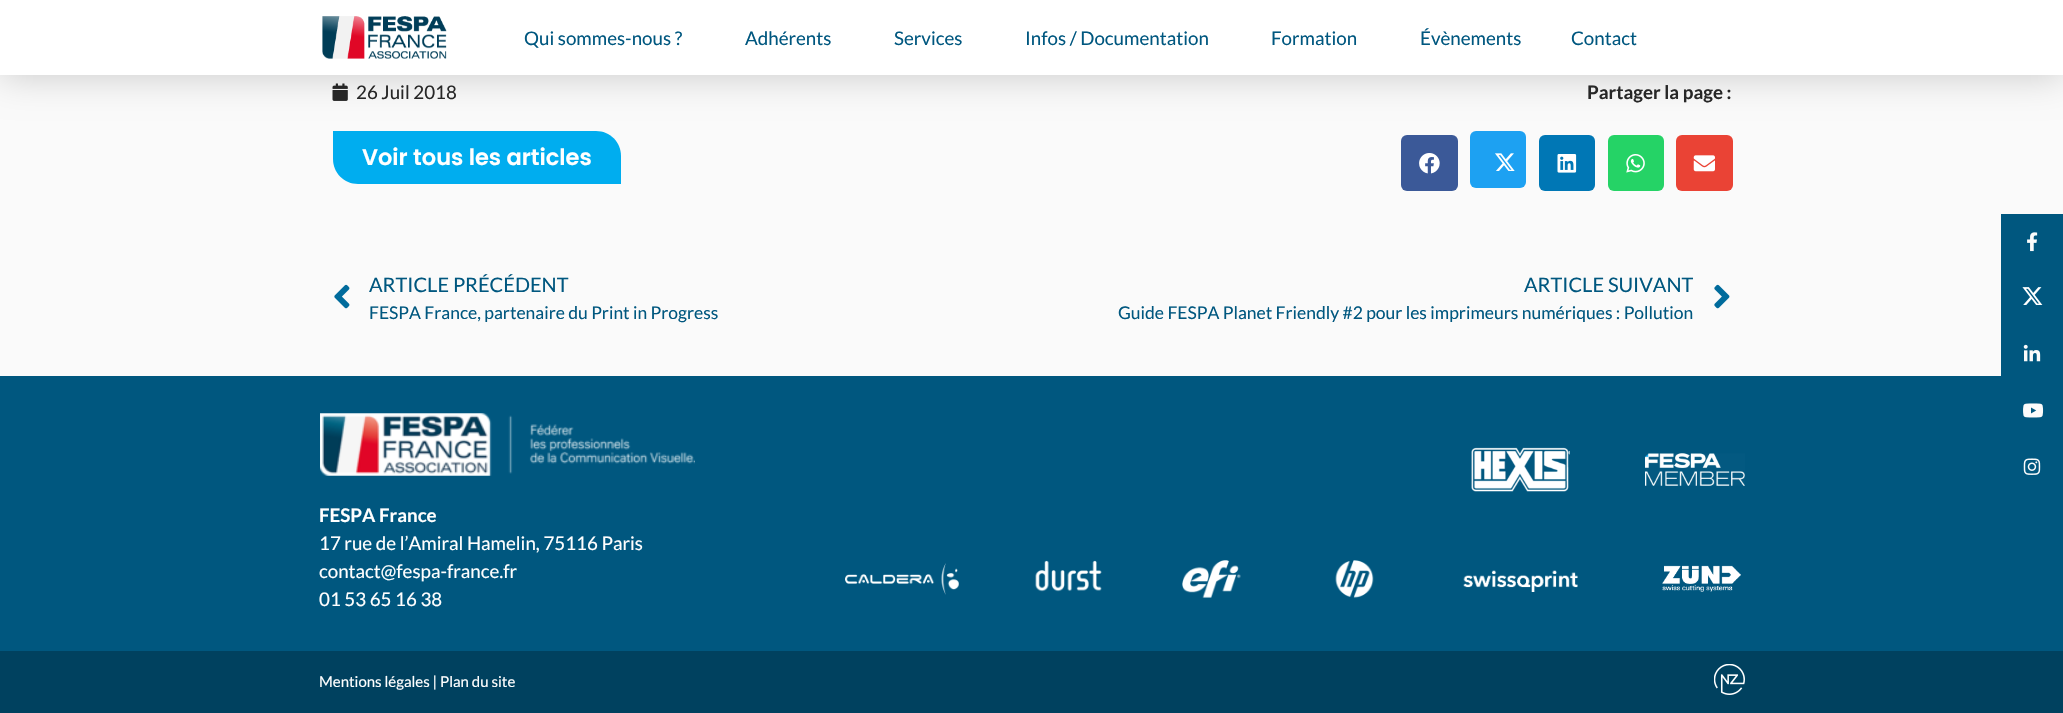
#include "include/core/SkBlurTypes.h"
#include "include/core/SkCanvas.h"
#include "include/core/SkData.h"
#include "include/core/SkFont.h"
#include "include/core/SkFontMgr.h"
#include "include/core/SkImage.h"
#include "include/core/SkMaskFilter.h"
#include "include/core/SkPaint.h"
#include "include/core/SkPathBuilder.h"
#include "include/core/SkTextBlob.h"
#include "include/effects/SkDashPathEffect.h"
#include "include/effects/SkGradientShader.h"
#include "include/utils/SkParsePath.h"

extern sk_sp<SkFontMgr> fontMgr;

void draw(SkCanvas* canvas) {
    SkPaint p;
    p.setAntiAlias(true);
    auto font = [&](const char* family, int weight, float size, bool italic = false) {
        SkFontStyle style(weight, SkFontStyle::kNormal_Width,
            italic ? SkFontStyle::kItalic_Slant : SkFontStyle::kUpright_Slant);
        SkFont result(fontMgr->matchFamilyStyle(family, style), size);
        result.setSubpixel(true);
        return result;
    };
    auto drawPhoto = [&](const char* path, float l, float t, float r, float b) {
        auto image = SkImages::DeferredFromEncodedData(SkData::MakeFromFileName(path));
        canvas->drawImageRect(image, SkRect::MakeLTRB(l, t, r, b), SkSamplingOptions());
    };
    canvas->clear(0xFFFAFAFA);
    drawPhoto("media/2.png", 332, 83, 348, 101);
    p.setColor(0xFF00ADEF);
    canvas->drawPath(SkPathBuilder().moveTo(333, 131).lineTo(596, 131).cubicTo(610, 131, 621, 142, 621, 156).lineTo(621, 184).lineTo(358, 184).cubicTo(344, 184, 333, 173, 333, 159).close().detach(), p);
    p.setColor(0xFF1DA1F2);
    canvas->drawRoundRect(SkRect::MakeLTRB(1470, 131, 1526, 188), 6, 6, p);
    p.setColor(0x33000000);
    p.setMaskFilter(SkMaskFilter::MakeBlur(kNormal_SkBlurStyle, 19));
    canvas->drawRect(SkRect::MakeLTRB(0, 0, 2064, 75), p);
    p.setMaskFilter(nullptr);
    p.setColor(0xFFFFFFFF);
    canvas->drawRect(SkRect::MakeLTRB(0, 0, 2063, 75), p);
    drawPhoto("media/1.png", 322, 16, 447, 59);
    auto font1 = font("Lato", 400, 18.75f);
    p.setColor(0xFF00577F);
    {
        const struct { const char* s; float x, y; } items[] = {
            {"Qui sommes-nous ?", 524, 45},
            {"Adhérents", 745, 45},
            {"Services", 894, 45},
            {"Infos / Documentation", 1025, 45},
            {"Formation", 1271, 45},
            {"Évènements", 1420, 45},
            {"Contact", 1571, 45},
        };
        for (auto [s, x, y] : items) {
            canvas->drawString(s, x, y, font1, p);
        }
    }
    p.setColor(0xFF272727);
    canvas->drawString("26 Juil 2018", 356, 99, font1, p);
    auto font2 = font("Poppins", 600, 22.5f);
    p.setColor(0xFFFFFFFF);
    canvas->drawString("Voir tous les articles", 362, 165, font2, p);
    auto font3 = font("Lato", 700, 18.75f);
    p.setColor(0xFF272727);
    canvas->drawString("Partager la page :", 1587, 99, font3, p);
    p.setColor(0xFF3B5998);
    canvas->drawRoundRect(SkRect::MakeLTRB(1401, 135, 1458, 191), 6, 6, p);
    drawPhoto("media/3.png", 1419, 153, 1440, 174);
    drawPhoto("media/4.png", 1495, 153, 1515, 171);
    p.setColor(0xFF0077B5);
    canvas->drawRoundRect(SkRect::MakeLTRB(1539, 135, 1595, 191), 6, 6, p);
    drawPhoto("media/5.png", 1557, 154, 1577, 173);
    p.setColor(0xFF25D366);
    canvas->drawRoundRect(SkRect::MakeLTRB(1608, 135, 1664, 191), 6, 6, p);
    drawPhoto("media/6.png", 1626, 154, 1645, 173);
    p.setColor(0xFFEA4335);
    canvas->drawRoundRect(SkRect::MakeLTRB(1676, 135, 1733, 191), 6, 6, p);
    drawPhoto("media/7.png", 1693, 155, 1715, 172);
    drawPhoto("media/8.png", 334, 284, 350, 309);
    auto font4 = font("Lato", 400, 20);
    p.setColor(0xFF00577F);
    canvas->drawString("ARTICLE PRÉCÉDENT", 369, 292, font4, p);
    auto font5 = font("Lato", 400, 17.5f);
    canvas->drawString("FESPA France, partenaire du Print in Progress", 369, 319, font5, p);
    canvas->drawString("ARTICLE SUIVANT", 1524, 292, font4, p);
    canvas->drawString("Guide FESPA Planet Friendly #2 pour les imprimeurs numériques : Pollution", 1118, 319, font5, p);
    drawPhoto("media/9.png", 1714, 284, 1730, 309);
    canvas->drawRect(SkRect::MakeLTRB(2001, 214, 2063, 376), p);
    drawPhoto("media/10.png", 2027, 232, 2038, 252);
    drawPhoto("media/11.png", 2022, 287, 2043, 305);
    drawPhoto("media/12.png", 2023, 344, 2041, 362);
    canvas->drawRect(SkRect::MakeLTRB(0, 376, 2063, 651), p);
    drawPhoto("media/13.png", 2023, 403, 2044, 418);
    drawPhoto("media/14.png", 2023, 458, 2041, 475);
    drawPhoto("media/15.png", 320, 413, 695, 476);
    p.setColor(0xFFFFFFFF);
    canvas->drawString("FESPA France", 319, 522, font3, p);
    {
        const struct { const char* s; float x, y; } items[] = {
            {"17 rue de l’Amiral Hamelin, 75116 Paris", 319, 550},
            {"contact@fespa-france.fr", 319, 578},
            {"01 53 65 16 38", 319, 606},
        };
        for (auto [s, x, y] : items) {
            canvas->drawString(s, x, y, font1, p);
        }
    }
    drawPhoto("media/16.png", 1471, 447, 1570, 492);
    drawPhoto("media/17.png", 1645, 453, 1745, 486);
    drawPhoto("media/18.png", 845, 563, 959, 595);
    drawPhoto("media/19.png", 1035, 560, 1102, 592);
    drawPhoto("media/20.png", 1182, 560, 1241, 598);
    drawPhoto("media/21.png", 1335, 560, 1374, 598);
    drawPhoto("media/22.png", 1463, 570, 1578, 592);
    drawPhoto("media/23.png", 1662, 565, 1741, 592);
    p.setColor(0xFF00415F);
    canvas->drawRect(SkRect::MakeLTRB(0, 651, 2063, 713), p);
    auto font6 = font("Lato", 400, 15);
    p.setColor(0xFFFFFFFF);
    canvas->drawString("Mentions légales | Plan du site", 319, 687, font6, p);
    drawPhoto("media/24.png", 1714, 664, 1745, 695);
}
